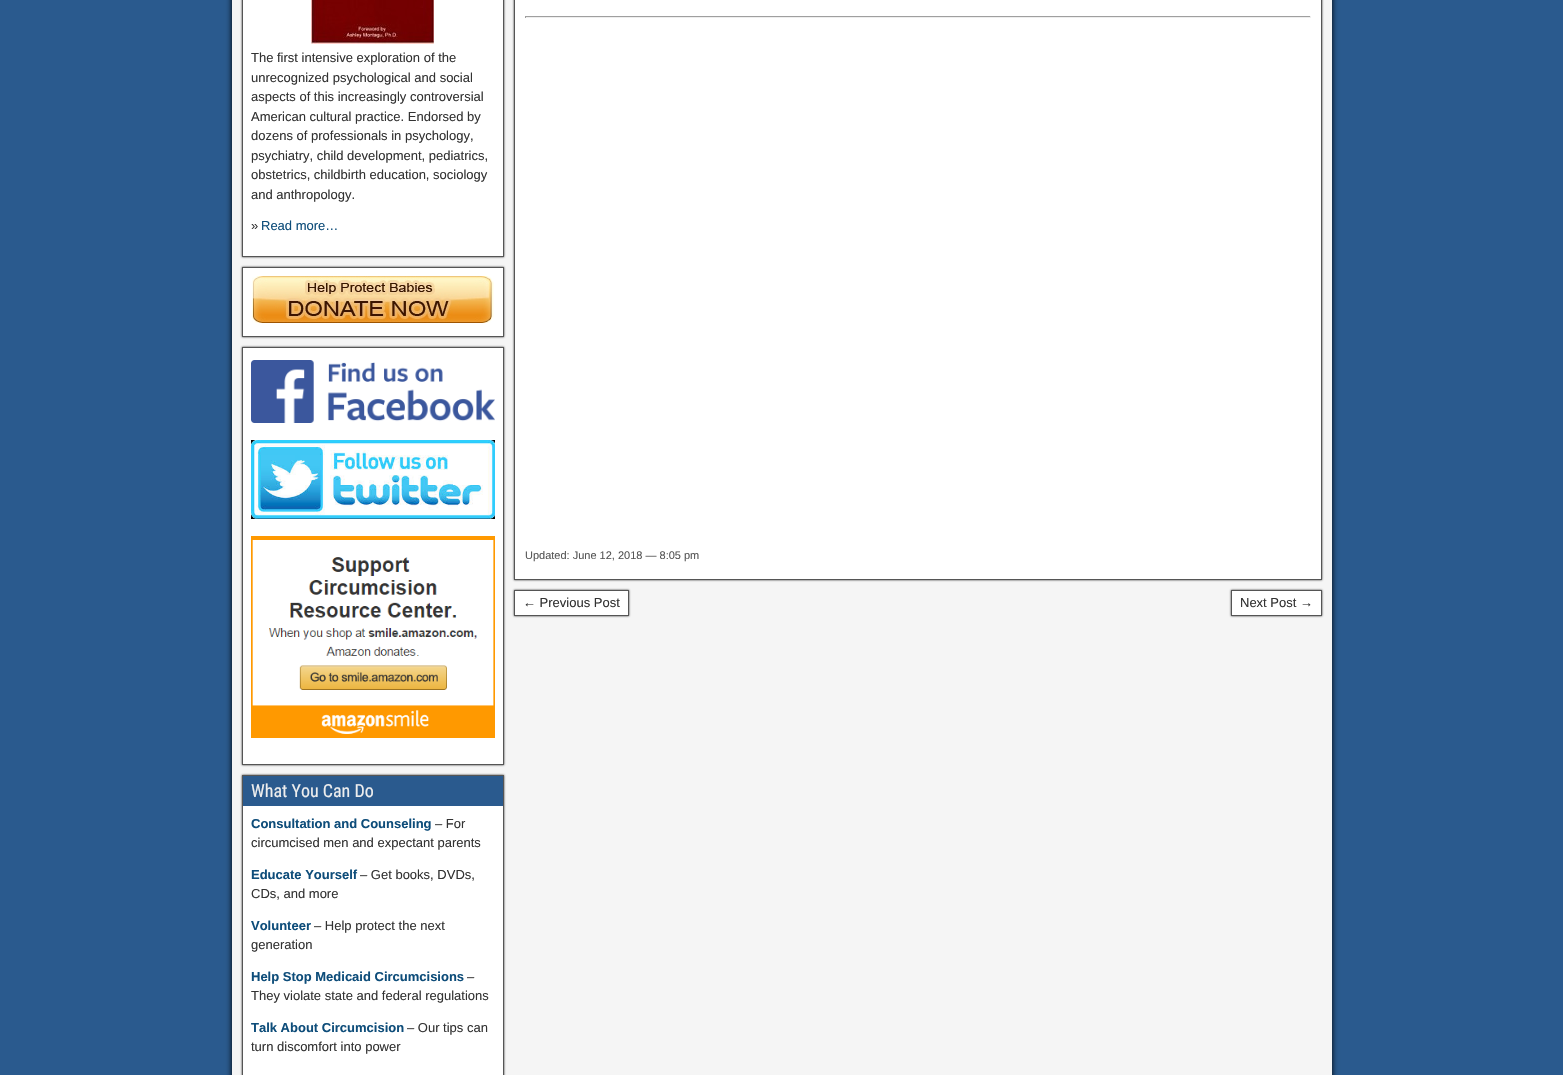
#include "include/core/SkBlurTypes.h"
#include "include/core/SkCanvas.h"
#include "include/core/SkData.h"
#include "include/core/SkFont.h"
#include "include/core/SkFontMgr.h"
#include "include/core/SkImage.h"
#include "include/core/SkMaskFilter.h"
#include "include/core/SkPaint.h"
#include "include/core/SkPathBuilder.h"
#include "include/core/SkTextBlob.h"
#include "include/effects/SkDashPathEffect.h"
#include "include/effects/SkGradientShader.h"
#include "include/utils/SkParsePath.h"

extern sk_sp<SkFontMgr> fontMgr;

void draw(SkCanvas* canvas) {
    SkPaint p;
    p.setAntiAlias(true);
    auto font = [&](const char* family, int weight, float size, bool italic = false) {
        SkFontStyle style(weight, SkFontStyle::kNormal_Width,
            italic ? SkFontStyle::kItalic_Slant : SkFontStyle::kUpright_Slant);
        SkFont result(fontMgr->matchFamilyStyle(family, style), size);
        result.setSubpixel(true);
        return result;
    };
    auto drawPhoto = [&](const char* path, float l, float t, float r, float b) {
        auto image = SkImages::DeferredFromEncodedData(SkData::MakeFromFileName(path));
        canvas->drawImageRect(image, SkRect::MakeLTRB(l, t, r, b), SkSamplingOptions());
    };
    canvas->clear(0xFF2A5A8E);
    p.setColor(0xFF000000);
    p.setMaskFilter(SkMaskFilter::MakeBlur(kNormal_SkBlurStyle, 3));
    canvas->drawRect(SkRect::MakeLTRB(232, -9, 1332, 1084), p);
    p.setMaskFilter(nullptr);
    p.setColor(0xFFF5F5F5);
    canvas->drawRect(SkRect::MakeLTRB(232, 0, 1332, 1075), p);
    p.setColor(0xFF333333);
    p.setMaskFilter(SkMaskFilter::MakeBlur(kNormal_SkBlurStyle, 1));
    canvas->drawRect(SkRect::MakeLTRB(242, -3, 504, 257), p);
    p.setMaskFilter(nullptr);
    p.setColor(0xFFFFFFFF);
    canvas->drawRect(SkRect::MakeLTRB(242.5f, -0.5f, 503.5f, 256.5f), p);
    p.setStyle(SkPaint::kStroke_Style);
    p.setStrokeWidth(1);
    p.setColor(0xFF555555);
    canvas->drawRect(SkRect::MakeLTRB(242.5f, -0.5f, 503.5f, 256.5f), p);
    drawPhoto("media/1.png", 311, 0, 434, 44);
    auto font1 = font("Liberation Sans", 400, 13);
    p.setStyle(SkPaint::kFill_Style);
    p.setColor(0xFF333333);
    {
        const struct { const char* s; float x, y; } items[] = {
            {"The first intensive exploration of the", 251, 62},
            {"unrecognized psychological and social", 251, 82},
            {"aspects of this increasingly controversial", 251, 101},
            {"American cultural practice. Endorsed by", 251, 121},
            {"dozens of professionals in psychology,", 251, 140},
            {"psychiatry, child development, pediatrics,", 251, 160},
            {"obstetrics, childbirth education, sociology", 251, 179},
            {"and anthropology.", 251, 199},
            {"»", 251, 230},
        };
        for (auto [s, x, y] : items) {
            canvas->drawString(s, x, y, font1, p);
        }
    }
    p.setColor(0xFF0E4D7A);
    canvas->drawString("Read more…", 261, 230, font1, p);
    p.setColor(0xFF333333);
    p.setMaskFilter(SkMaskFilter::MakeBlur(kNormal_SkBlurStyle, 1));
    canvas->drawRect(SkRect::MakeLTRB(242, 267, 504, 337), p);
    p.setMaskFilter(nullptr);
    p.setColor(0xFFFFFFFF);
    canvas->drawRect(SkRect::MakeLTRB(242.5f, 267.5f, 503.5f, 336.5f), p);
    p.setStyle(SkPaint::kStroke_Style);
    p.setColor(0xFF555555);
    canvas->drawRect(SkRect::MakeLTRB(242.5f, 267.5f, 503.5f, 336.5f), p);
    drawPhoto("media/2.png", 252, 276, 494, 323);
    p.setStyle(SkPaint::kFill_Style);
    p.setColor(0xFF333333);
    p.setMaskFilter(SkMaskFilter::MakeBlur(kNormal_SkBlurStyle, 1));
    canvas->drawRect(SkRect::MakeLTRB(242, 347, 504, 765), p);
    p.setMaskFilter(nullptr);
    p.setColor(0xFFFFFFFF);
    canvas->drawRect(SkRect::MakeLTRB(242.5f, 347.5f, 503.5f, 764.5f), p);
    p.setStyle(SkPaint::kStroke_Style);
    p.setColor(0xFF555555);
    canvas->drawRect(SkRect::MakeLTRB(242.5f, 347.5f, 503.5f, 764.5f), p);
    drawPhoto("media/3.png", 251, 360, 495, 423);
    drawPhoto("media/4.png", 251, 440, 495, 519);
    drawPhoto("media/5.png", 251, 536, 495, 738);
    p.setStyle(SkPaint::kFill_Style);
    p.setColor(0xFF333333);
    p.setMaskFilter(SkMaskFilter::MakeBlur(kNormal_SkBlurStyle, 1));
    canvas->drawRect(SkRect::MakeLTRB(242, 775, 504, 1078), p);
    p.setMaskFilter(nullptr);
    p.setColor(0xFFFFFFFF);
    canvas->drawRect(SkRect::MakeLTRB(243, 806, 503, 1075), p);
    p.setStyle(SkPaint::kStroke_Style);
    p.setColor(0xFF555555);
    canvas->drawRect(SkRect::MakeLTRB(242.5f, 775.5f, 503.5f, 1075.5f), p);
    p.setStyle(SkPaint::kFill_Style);
    p.setColor(0xFF2A5A8E);
    canvas->drawRect(SkRect::MakeLTRB(243, 776, 503, 806), p);
    auto font2 = font("Roboto Condensed", 400, 18);
    p.setColor(0xFFEEEEEE);
    canvas->drawString("What You Can Do", 251, 797, font2, p);
    auto font3 = font("Liberation Sans", 700, 13);
    p.setColor(0xFF0E4D7A);
    canvas->drawString("Consultation and Counseling", 251, 828, font3, p);
    p.setColor(0xFF333333);
    canvas->drawString("– For", 435, 828, font1, p);
    canvas->drawString("circumcised men and expectant parents", 251, 847, font1, p);
    p.setColor(0xFF0E4D7A);
    canvas->drawString("Educate Yourself", 251, 879, font3, p);
    p.setColor(0xFF333333);
    canvas->drawString("– Get books, DVDs,", 360, 879, font1, p);
    canvas->drawString("CDs, and more", 251, 898, font1, p);
    p.setColor(0xFF0E4D7A);
    canvas->drawString("Volunteer", 251, 930, font3, p);
    p.setColor(0xFF333333);
    canvas->drawString("– Help protect the next", 314, 930, font1, p);
    canvas->drawString("generation", 251, 949, font1, p);
    p.setColor(0xFF0E4D7A);
    canvas->drawString("Help Stop Medicaid Circumcisions", 251, 981, font3, p);
    p.setColor(0xFF333333);
    canvas->drawString("–", 467, 981, font1, p);
    canvas->drawString("They violate state and federal regulations", 251, 1000, font1, p);
    p.setColor(0xFF0E4D7A);
    canvas->drawString("Talk About Circumcision", 251, 1032, font3, p);
    p.setColor(0xFF333333);
    canvas->drawString("– Our tips can", 407, 1032, font1, p);
    canvas->drawString("turn discomfort into power", 251, 1051, font1, p);
    p.setMaskFilter(SkMaskFilter::MakeBlur(kNormal_SkBlurStyle, 1));
    canvas->drawRect(SkRect::MakeLTRB(514, -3, 1322, 580), p);
    p.setMaskFilter(nullptr);
    p.setColor(0xFFFFFFFF);
    canvas->drawRect(SkRect::MakeLTRB(514.5f, -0.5f, 1321.5f, 579.5f), p);
    p.setStyle(SkPaint::kStroke_Style);
    p.setColor(0xFF555555);
    canvas->drawRect(SkRect::MakeLTRB(514.5f, -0.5f, 1321.5f, 579.5f), p);
    p.setStyle(SkPaint::kFill_Style);
    {
        const struct { float l, t, r, b; SkColor color; } items[] = {
            {525, 16, 1311, 17, 0xFF9F9F9F},
            {1310, 16, 1311, 18, 0xFFEEEEEE},
            {525, 17, 1311, 18, 0xFFEEEEEE},
            {525, 16, 526, 18, 0xFF9F9F9F},
        };
        for (auto [l, t, r, b, color] : items) {
            p.setColor(color);
            canvas->drawRect(SkRect::MakeLTRB(l, t, r, b), p);
        }
    }
    auto font4 = font("Liberation Sans", 400, 11);
    p.setColor(0xFF555555);
    canvas->drawString("Updated: June 12, 2018 — 8:05 pm", 525, 559, font4, p);
    p.setColor(0xFF333333);
    p.setMaskFilter(SkMaskFilter::MakeBlur(kNormal_SkBlurStyle, 1));
    canvas->drawRect(SkRect::MakeLTRB(514, 590, 629, 616), p);
    p.setMaskFilter(nullptr);
    p.setColor(0xFFFFFFFF);
    canvas->drawRect(SkRect::MakeLTRB(514.5f, 590.5f, 628.5f, 615.5f), p);
    p.setStyle(SkPaint::kStroke_Style);
    p.setColor(0xFF555555);
    canvas->drawRect(SkRect::MakeLTRB(514.5f, 590.5f, 628.5f, 615.5f), p);
    p.setStyle(SkPaint::kFill_Style);
    p.setColor(0xFF333333);
    canvas->drawString("← Previous Post", 523, 607, font1, p);
    p.setMaskFilter(SkMaskFilter::MakeBlur(kNormal_SkBlurStyle, 1));
    canvas->drawRect(SkRect::MakeLTRB(1231, 590, 1322, 616), p);
    p.setMaskFilter(nullptr);
    p.setColor(0xFFFFFFFF);
    canvas->drawRect(SkRect::MakeLTRB(1231.5f, 590.5f, 1321.5f, 615.5f), p);
    p.setStyle(SkPaint::kStroke_Style);
    p.setColor(0xFF555555);
    canvas->drawRect(SkRect::MakeLTRB(1231.5f, 590.5f, 1321.5f, 615.5f), p);
    p.setStyle(SkPaint::kFill_Style);
    p.setColor(0xFF333333);
    canvas->drawString("Next Post →", 1240, 607, font1, p);
}
